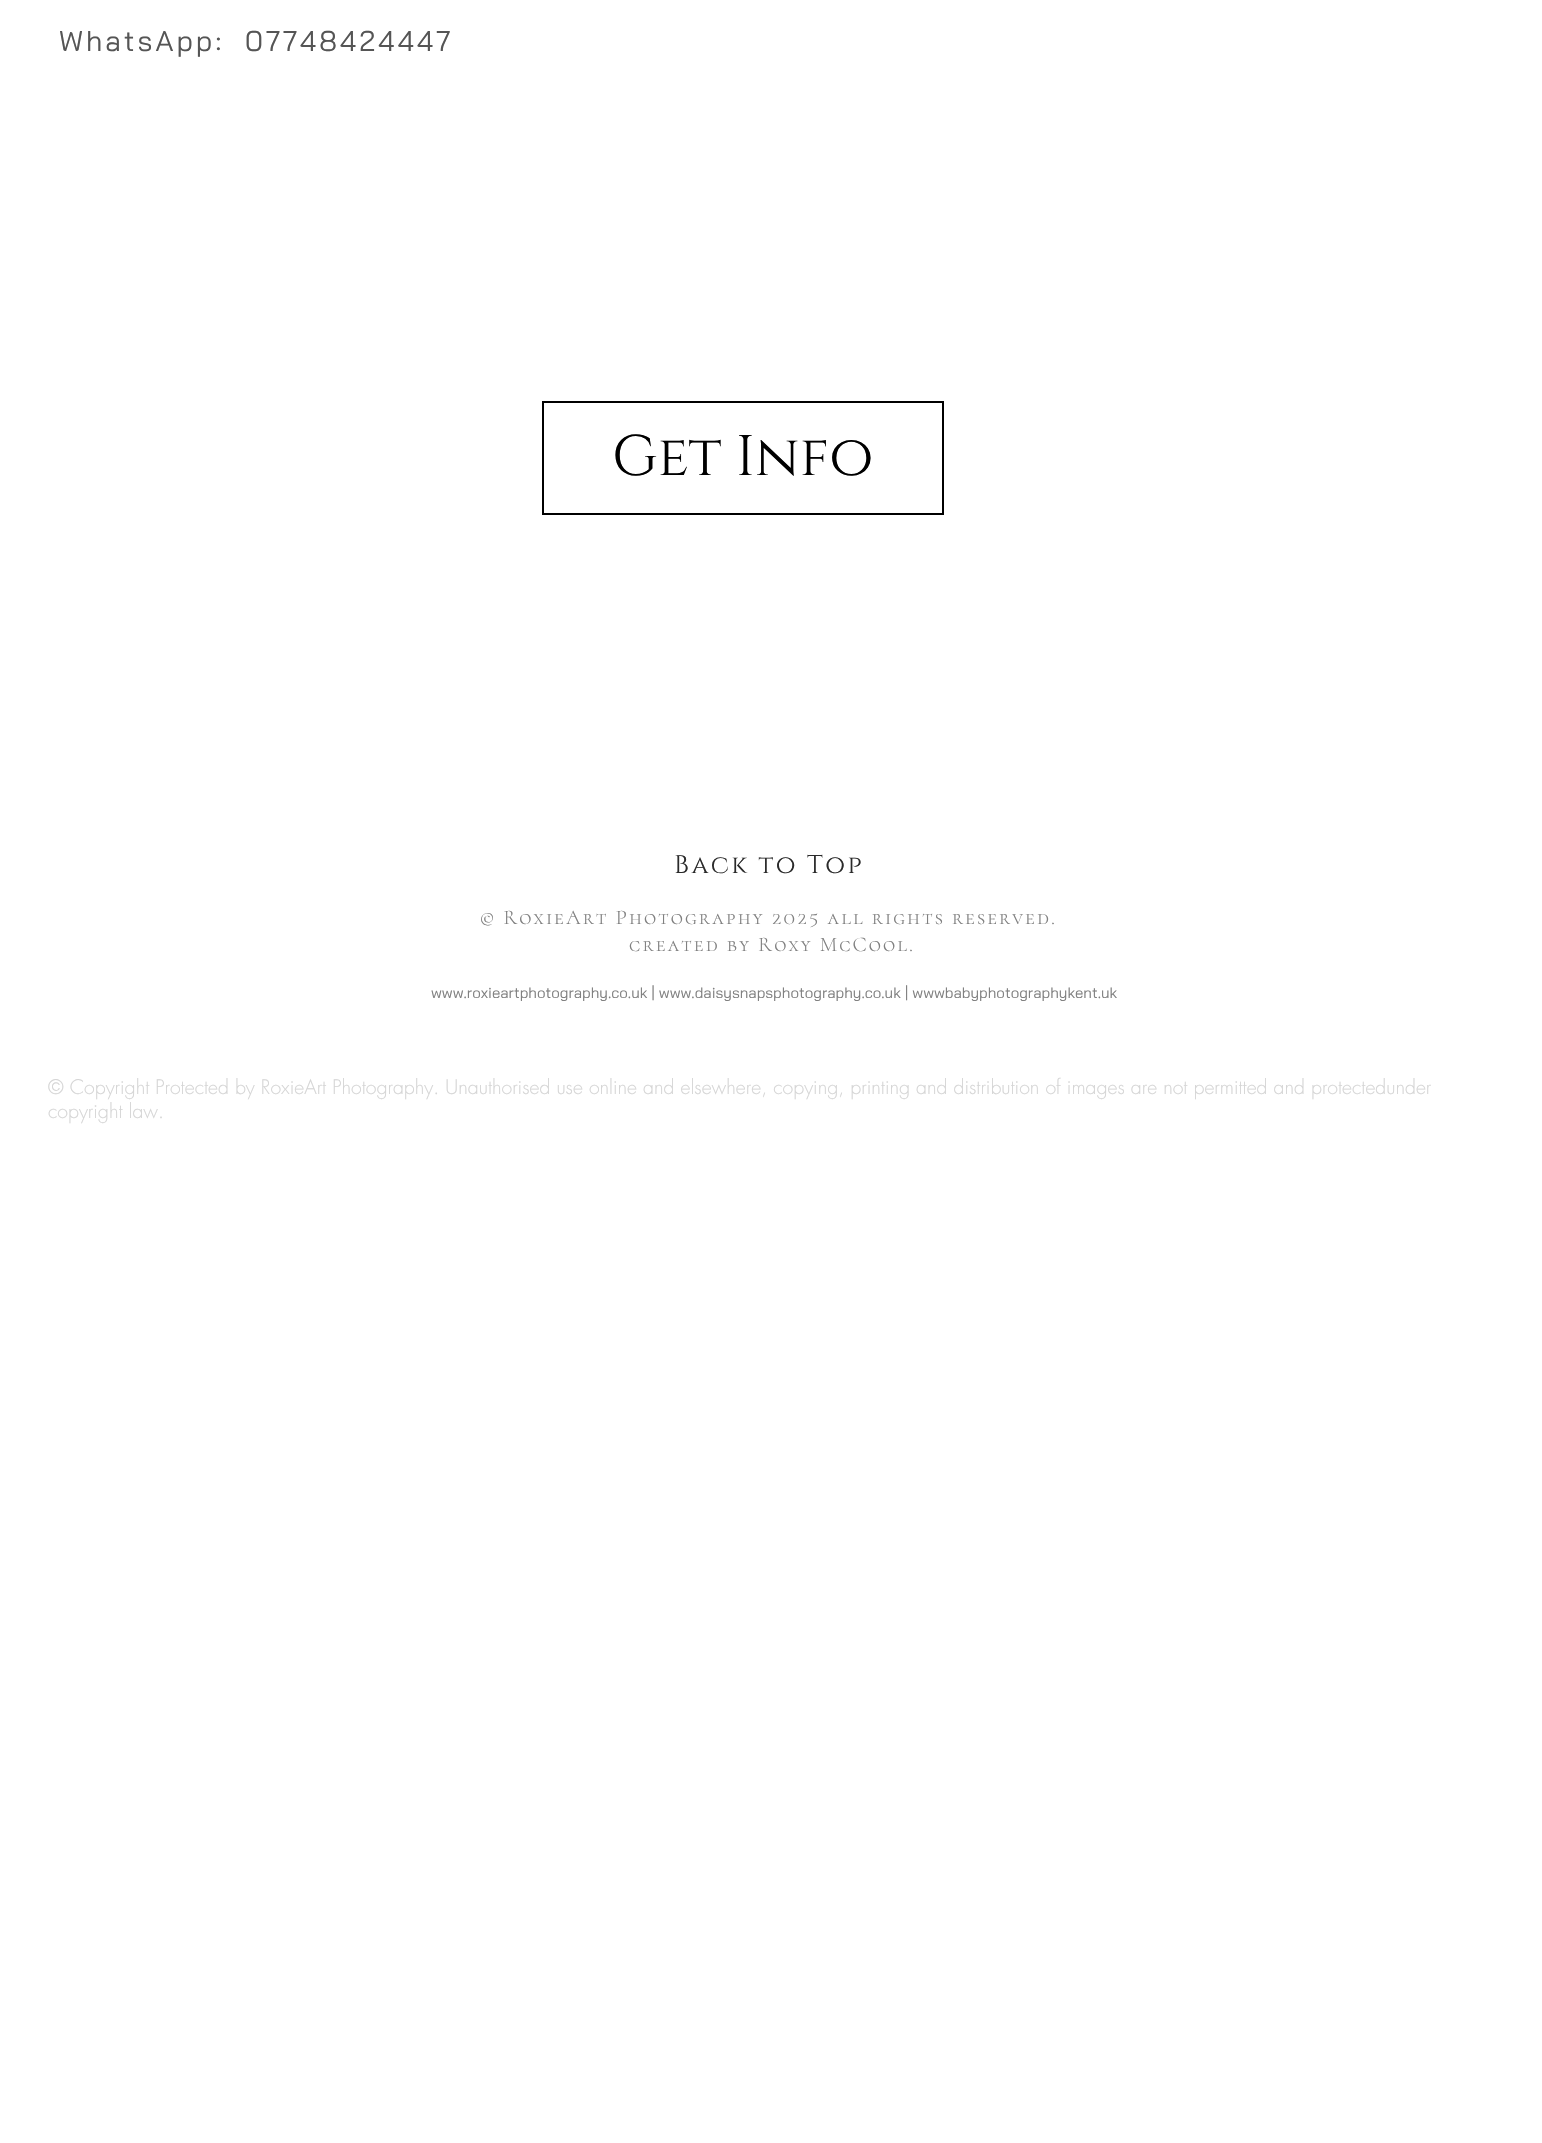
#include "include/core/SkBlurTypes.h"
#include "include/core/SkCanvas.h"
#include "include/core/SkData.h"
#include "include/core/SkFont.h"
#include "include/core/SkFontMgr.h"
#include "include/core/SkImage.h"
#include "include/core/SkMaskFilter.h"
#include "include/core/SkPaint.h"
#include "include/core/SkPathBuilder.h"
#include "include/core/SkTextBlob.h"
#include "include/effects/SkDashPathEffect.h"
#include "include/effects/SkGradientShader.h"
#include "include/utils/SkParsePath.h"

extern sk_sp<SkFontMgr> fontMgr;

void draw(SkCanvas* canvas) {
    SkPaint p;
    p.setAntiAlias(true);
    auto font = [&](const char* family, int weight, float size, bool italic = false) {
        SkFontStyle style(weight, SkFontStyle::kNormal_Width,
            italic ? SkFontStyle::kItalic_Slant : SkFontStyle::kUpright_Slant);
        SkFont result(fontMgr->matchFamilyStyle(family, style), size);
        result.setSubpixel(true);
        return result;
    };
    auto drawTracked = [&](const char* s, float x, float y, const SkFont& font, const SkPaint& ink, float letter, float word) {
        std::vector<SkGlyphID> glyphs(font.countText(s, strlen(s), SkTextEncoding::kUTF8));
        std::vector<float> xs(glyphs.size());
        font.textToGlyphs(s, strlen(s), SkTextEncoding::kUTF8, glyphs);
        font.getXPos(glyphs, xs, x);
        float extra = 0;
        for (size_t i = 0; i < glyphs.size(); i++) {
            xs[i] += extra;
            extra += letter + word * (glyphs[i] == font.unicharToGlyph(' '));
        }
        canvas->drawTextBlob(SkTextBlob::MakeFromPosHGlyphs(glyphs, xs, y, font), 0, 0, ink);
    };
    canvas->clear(0xFFFFFFFF);
    auto font1 = font("Bai Jamjuree", 400, 28.5f);
    p.setColor(0xFF555555);
    drawTracked("WhatsApp:  07748424447", 59, 51, font1, p, 2.85f, 0);
    p.setStyle(SkPaint::kStroke_Style);
    p.setStrokeWidth(2);
    p.setColor(0xFF000000);
    canvas->drawRect(SkRect::MakeLTRB(543, 402, 943, 514), p);
    auto font2 = font("Cinzel", 400, 57);
    p.setStyle(SkPaint::kFill_Style);
    canvas->drawString("Get Info", 612, 475, font2, p);
    auto font3 = font("Cinzel", 400, 25.5f);
    p.setColor(0xFF2A2A2A);
    drawTracked("Back to Top", 674, 873, font3, p, 2.5f, 0);
    auto font4 = font("Cormorant SC", 300, 21);
    p.setColor(0xFF808080);
    drawTracked("© RoxieArt Photography 2025 all rights reserved.", 480, 924, font4, p, 2.1f, 0);
    drawTracked("created by Roxy McCool.", 629, 951, font4, p, 2.1f, 0);
    auto font5 = font("Bai Jamjuree", 400, 15);
    canvas->drawString("www.roxieartphotography.co.uk | www.daisysnapsphotography.co.uk | wwwbabyphotographykent.uk", 431, 998, font5, p);
    auto font6 = font("futura", 300, 19.5f);
    p.setColor(0xFFD5D5D5);
    canvas->drawString("© Copyright Protected by RoxieArt Photography. Unauthorised use online and elsewhere, copying, printing and distribution of images are not permitted and protectedunder", 48, 1094, font6, p);
    canvas->drawString("copyright law.", 48, 1118, font6, p);
}
